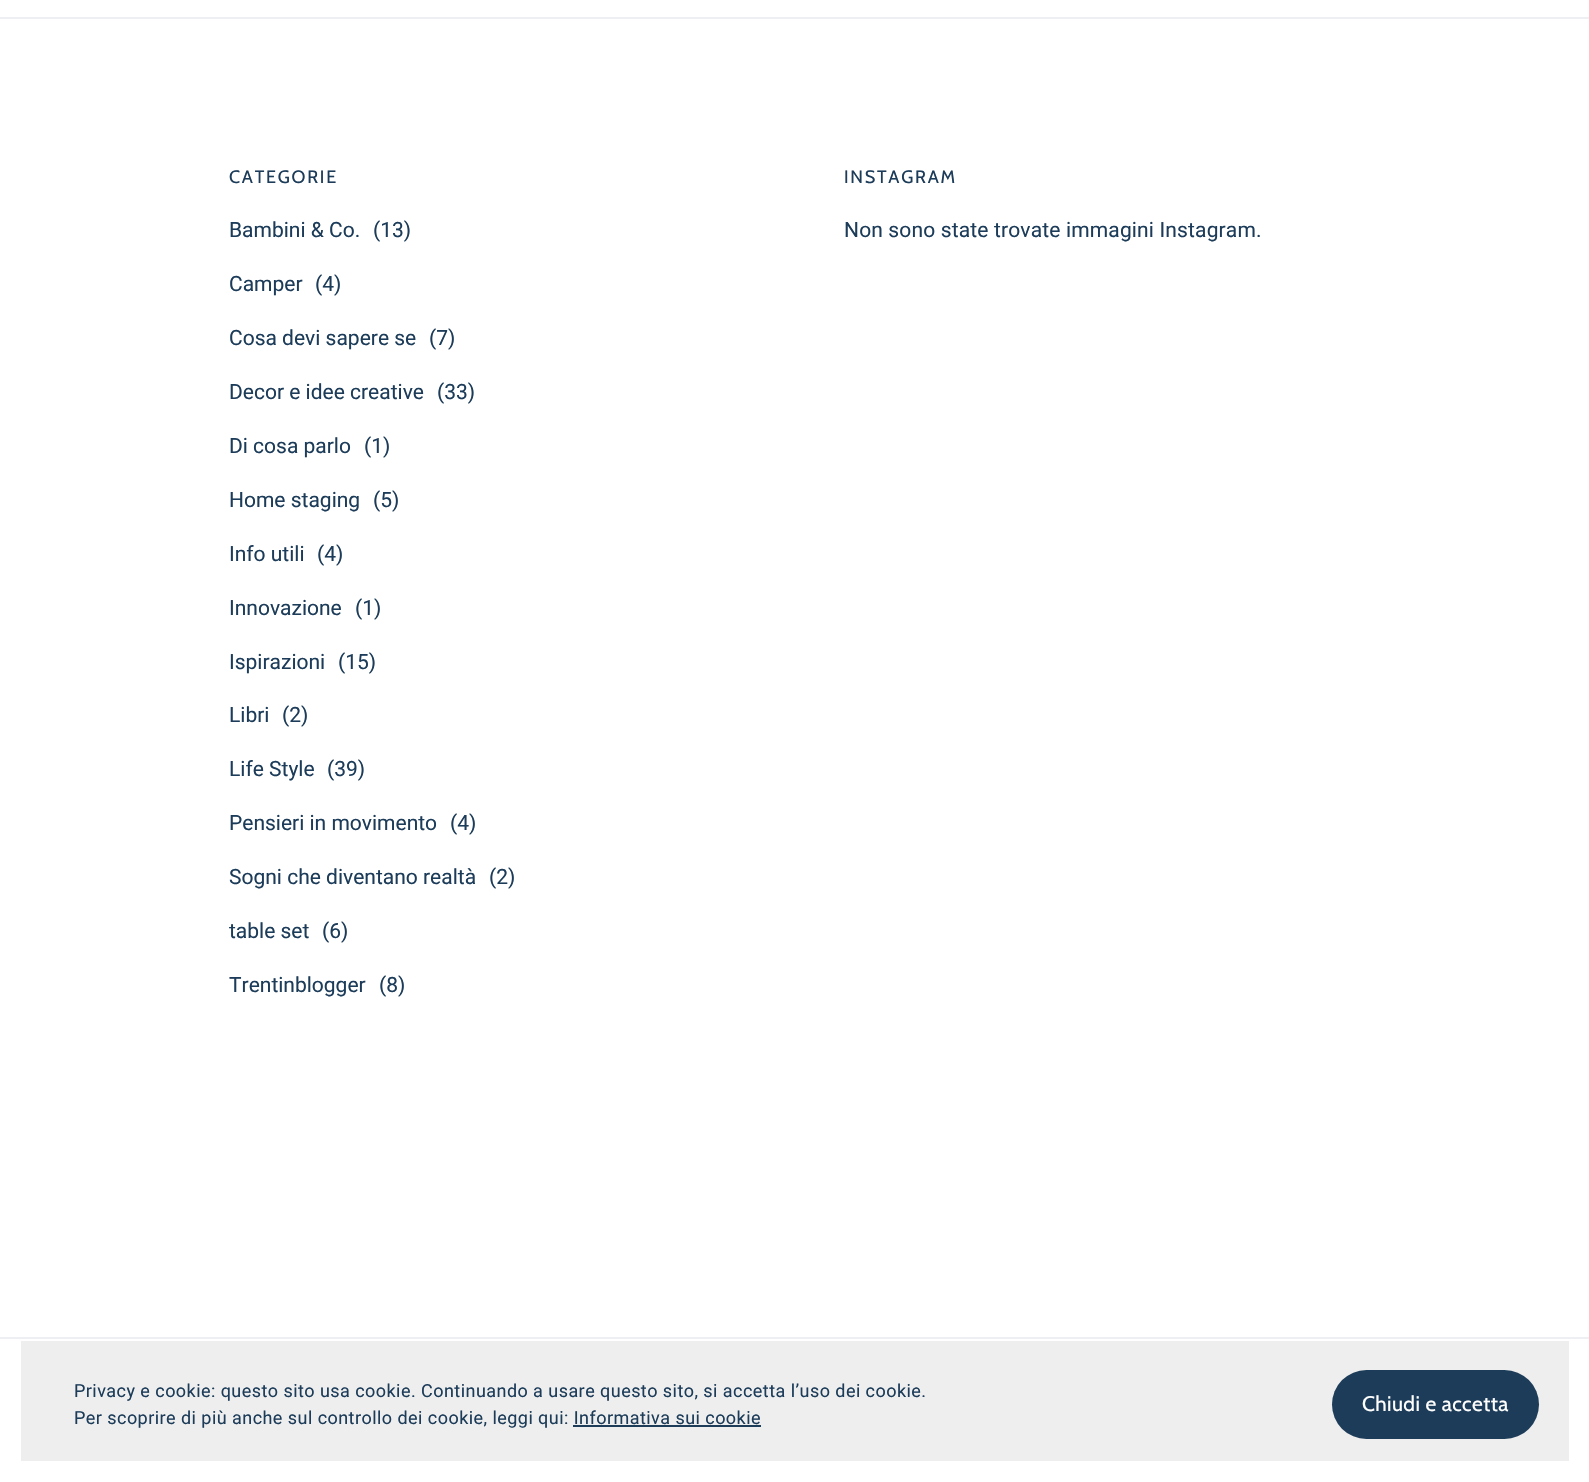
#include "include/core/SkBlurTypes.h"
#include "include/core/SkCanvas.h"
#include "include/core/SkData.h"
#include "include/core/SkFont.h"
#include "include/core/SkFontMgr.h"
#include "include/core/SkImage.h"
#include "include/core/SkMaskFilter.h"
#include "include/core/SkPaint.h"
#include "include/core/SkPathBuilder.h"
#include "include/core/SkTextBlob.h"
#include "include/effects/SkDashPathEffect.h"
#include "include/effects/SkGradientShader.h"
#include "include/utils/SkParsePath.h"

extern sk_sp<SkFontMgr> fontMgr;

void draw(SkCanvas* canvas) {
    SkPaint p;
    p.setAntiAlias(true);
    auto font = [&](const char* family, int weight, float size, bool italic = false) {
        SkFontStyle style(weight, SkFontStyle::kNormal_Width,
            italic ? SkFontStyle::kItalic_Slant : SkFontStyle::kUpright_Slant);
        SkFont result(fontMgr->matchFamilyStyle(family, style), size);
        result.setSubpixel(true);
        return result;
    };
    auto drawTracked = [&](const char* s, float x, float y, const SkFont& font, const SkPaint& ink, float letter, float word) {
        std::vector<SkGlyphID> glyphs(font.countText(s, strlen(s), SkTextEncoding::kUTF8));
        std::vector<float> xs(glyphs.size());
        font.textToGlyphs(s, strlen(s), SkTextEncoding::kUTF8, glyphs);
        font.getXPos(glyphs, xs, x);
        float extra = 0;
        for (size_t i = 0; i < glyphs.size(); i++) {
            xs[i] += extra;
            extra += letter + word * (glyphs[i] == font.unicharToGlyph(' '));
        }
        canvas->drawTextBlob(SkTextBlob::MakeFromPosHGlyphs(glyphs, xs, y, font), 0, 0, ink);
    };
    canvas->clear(0xFFFFFFFF);
    p.setColor(0xFFEDEFF2);
    canvas->drawRect(SkRect::MakeLTRB(0, 17, 1589, 19), p);
    auto font1 = font("Cabin", 400, 18);
    p.setColor(0xFF1C3C59);
    drawTracked("CATEGORIE", 229, 183, font1, p, 1.75f, 0);
    auto font2 = font("Roboto", 400, 21);
    {
        const struct { const char* s; float x, y; } items[] = {
            {"Bambini & Co.", 229, 237},
            {"(13)", 373, 237},
            {"Camper", 229, 291},
            {"(4)", 315, 291},
            {"Cosa devi sapere se", 229, 345},
            {"(7)", 429, 345},
            {"Decor e idee creative", 229, 399},
            {"(33)", 437, 399},
            {"Di cosa parlo", 229, 453},
            {"(1)", 364, 453},
            {"Home staging", 229, 507},
            {"(5)", 373, 507},
            {"Info utili", 229, 561},
            {"(4)", 317, 561},
            {"Innovazione", 229, 615},
            {"(1)", 355, 615},
            {"Ispirazioni", 229, 669},
            {"(15)", 338, 669},
            {"Libri", 229, 722},
            {"(2)", 282, 722},
            {"Life Style", 229, 776},
            {"(39)", 327, 776},
            {"Pensieri in movimento", 229, 830},
            {"(4)", 450, 830},
            {"Sogni che diventano realtà", 229, 884},
            {"(2)", 489, 884},
            {"table set", 229, 938},
            {"(6)", 322, 938},
            {"Trentinblogger", 229, 992},
            {"(8)", 379, 992},
        };
        for (auto [s, x, y] : items) {
            canvas->drawString(s, x, y, font2, p);
        }
    }
    drawTracked("INSTAGRAM", 844, 183, font1, p, 1.75f, 0);
    drawTracked("Non sono state trovate immagini Instagram.", 844, 237, font2, p, 0.15f, 0);
    p.setColor(0xFFEDEFF2);
    canvas->drawRect(SkRect::MakeLTRB(0, 1337, 1589, 1339), p);
    p.setColor(0xFFEEEEEE);
    canvas->drawRect(SkRect::MakeLTRB(21, 1341, 1569, 1461), p);
    auto font3 = font("Roboto", 400, 18);
    p.setColor(0xFF1C3C59);
    drawTracked("Privacy e cookie: questo sito usa cookie. Continuando a usare questo sito, si accetta l’uso dei cookie.", 74, 1397, font3, p, 0.45f, 0);
    canvas->drawRoundRect(SkRect::MakeLTRB(1332, 1370, 1539, 1439), 34.5f, 34.5f, p);
    auto font4 = font("Cabin", 400, 21);
    p.setColor(0xFFFFFFFF);
    drawTracked("Chiudi e accetta", 1362, 1411, font4, p, 0.4f, 0);
    p.setColor(0xFF1C3C59);
    drawTracked("Per scoprire di più anche sul controllo dei cookie, leggi qui: Informativa sui cookie", 74, 1424, font3, p, 0.45f, 0);
    canvas->drawRect(SkRect::MakeLTRB(573, 1425, 761, 1427), p);
}
